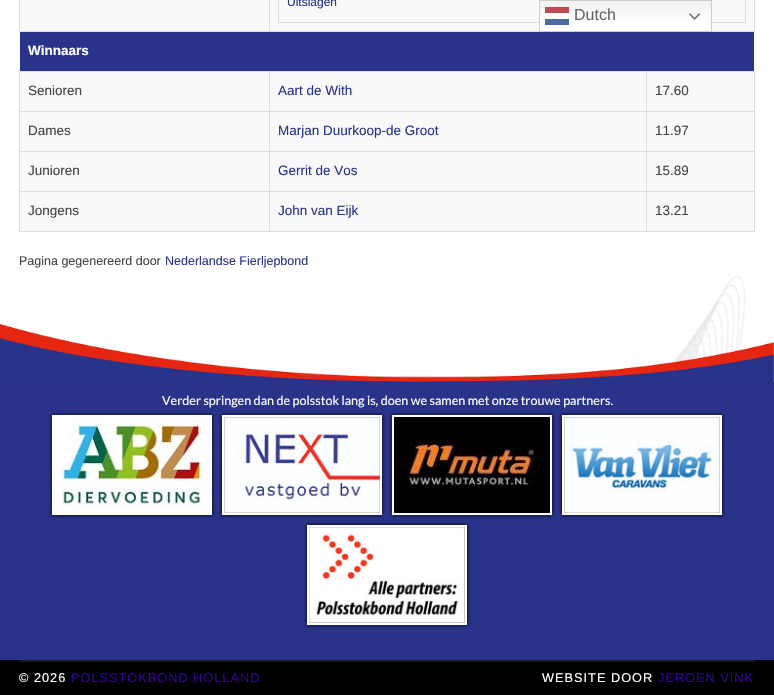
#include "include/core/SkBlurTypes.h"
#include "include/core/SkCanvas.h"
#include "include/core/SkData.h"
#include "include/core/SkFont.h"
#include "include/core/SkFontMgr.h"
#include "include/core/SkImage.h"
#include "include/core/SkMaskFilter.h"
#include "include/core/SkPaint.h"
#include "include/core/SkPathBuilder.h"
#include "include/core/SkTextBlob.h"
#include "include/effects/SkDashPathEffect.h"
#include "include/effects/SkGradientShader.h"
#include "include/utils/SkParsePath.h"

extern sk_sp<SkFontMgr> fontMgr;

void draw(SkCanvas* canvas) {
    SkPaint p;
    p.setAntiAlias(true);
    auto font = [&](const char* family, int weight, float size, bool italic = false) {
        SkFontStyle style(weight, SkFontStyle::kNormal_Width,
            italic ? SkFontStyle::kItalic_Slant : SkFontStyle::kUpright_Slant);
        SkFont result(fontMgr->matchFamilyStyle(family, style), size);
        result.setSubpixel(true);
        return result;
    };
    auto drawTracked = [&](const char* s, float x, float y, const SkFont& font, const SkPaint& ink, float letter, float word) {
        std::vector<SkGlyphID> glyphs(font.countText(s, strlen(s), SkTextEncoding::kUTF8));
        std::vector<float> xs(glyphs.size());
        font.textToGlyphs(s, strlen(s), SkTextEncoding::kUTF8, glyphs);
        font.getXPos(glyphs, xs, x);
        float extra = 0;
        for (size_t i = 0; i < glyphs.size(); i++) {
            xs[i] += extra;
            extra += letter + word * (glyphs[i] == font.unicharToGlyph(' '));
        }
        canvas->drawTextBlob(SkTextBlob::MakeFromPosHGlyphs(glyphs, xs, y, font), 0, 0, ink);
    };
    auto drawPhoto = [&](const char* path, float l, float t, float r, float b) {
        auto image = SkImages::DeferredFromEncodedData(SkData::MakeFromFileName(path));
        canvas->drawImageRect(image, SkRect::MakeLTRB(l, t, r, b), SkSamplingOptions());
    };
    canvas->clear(0xFFFFFFFF);
    drawPhoto("media/1.png", 673, 276, 746, 363);
    {
        const struct { float l, t, r, b; SkColor color; } items[] = {
            {20, 0, 269, 31, 0xFFF9F9F9},
            {754, 0, 755, 32, 0xFFDDDDDD},
            {269, 31, 755, 32, 0xFFDDDDDD},
            {269, 0, 270, 32, 0xFFDDDDDD},
            {19, 31, 270, 32, 0xFFDDDDDD},
            {19, 0, 20, 32, 0xFFDDDDDD},
            {270, 0, 754, 31, 0xFFF9F9F9},
            {745, 0, 746, 23, 0xFFDDDDDD},
            {278, 22, 746, 23, 0xFFDDDDDD},
            {278, 0, 279, 23, 0xFFDDDDDD},
        };
        for (auto [l, t, r, b, color] : items) {
            p.setColor(color);
            canvas->drawRect(SkRect::MakeLTRB(l, t, r, b), p);
        }
    }
    auto font1 = font("Liberation Sans", 400, 12);
    p.setColor(0xFF29338A);
    canvas->drawString("Uitslagen", 287, 6, font1, p);
    canvas->drawRect(SkRect::MakeLTRB(20, 32, 754, 71), p);
    auto font2 = font("Liberation Sans", 700, 13.5f);
    p.setColor(0xFFFFFFFF);
    canvas->drawString("Winnaars", 28, 55, font2, p);
    {
        const struct { float l, t, r, b; SkColor color; } items[] = {
            {20, 72, 269, 111, 0xFFF9F9F9},
            {646, 71, 755, 72, 0xFFDDDDDD},
            {646, 111, 755, 112, 0xFFDDDDDD},
            {646, 151, 755, 152, 0xFFDDDDDD},
            {646, 191, 755, 192, 0xFFDDDDDD},
            {754, 191, 755, 232, 0xFFDDDDDD},
            {646, 231, 755, 232, 0xFFDDDDDD},
            {646, 191, 647, 232, 0xFFDDDDDD},
            {269, 191, 647, 192, 0xFFDDDDDD},
            {646, 151, 647, 192, 0xFFDDDDDD},
            {269, 151, 647, 152, 0xFFDDDDDD},
            {646, 111, 647, 152, 0xFFDDDDDD},
            {269, 111, 647, 112, 0xFFDDDDDD},
            {646, 71, 647, 112, 0xFFDDDDDD},
            {269, 71, 647, 72, 0xFFDDDDDD},
            {269, 231, 647, 232, 0xFFDDDDDD},
            {269, 191, 270, 232, 0xFFDDDDDD},
            {19, 191, 270, 192, 0xFFDDDDDD},
            {269, 151, 270, 192, 0xFFDDDDDD},
            {19, 151, 270, 152, 0xFFDDDDDD},
            {269, 111, 270, 152, 0xFFDDDDDD},
            {19, 111, 270, 112, 0xFFDDDDDD},
            {269, 71, 270, 112, 0xFFDDDDDD},
            {19, 71, 270, 72, 0xFFDDDDDD},
            {19, 231, 270, 232, 0xFFDDDDDD},
            {19, 191, 20, 232, 0xFFDDDDDD},
            {19, 151, 20, 192, 0xFFDDDDDD},
            {19, 111, 20, 152, 0xFFDDDDDD},
            {19, 71, 20, 112, 0xFFDDDDDD},
        };
        for (auto [l, t, r, b, color] : items) {
            p.setColor(color);
            canvas->drawRect(SkRect::MakeLTRB(l, t, r, b), p);
        }
    }
    auto font3 = font("Liberation Sans", 400, 13.5f);
    p.setColor(0xFF444444);
    canvas->drawString("Senioren", 28, 95, font3, p);
    p.setColor(0xFFF9F9F9);
    canvas->drawRect(SkRect::MakeLTRB(270, 72, 646, 111), p);
    p.setColor(0xFF29338A);
    canvas->drawString("Aart de With", 278, 95, font3, p);
    {
        const struct { float l, t, r, b; SkColor color; } items[] = {
            {647, 72, 754, 111, 0xFFF9F9F9},
            {754, 151, 755, 192, 0xFFDDDDDD},
            {754, 111, 755, 152, 0xFFDDDDDD},
            {754, 71, 755, 112, 0xFFDDDDDD},
        };
        for (auto [l, t, r, b, color] : items) {
            p.setColor(color);
            canvas->drawRect(SkRect::MakeLTRB(l, t, r, b), p);
        }
    }
    p.setColor(0xFF444444);
    canvas->drawString("17.60", 655, 95, font3, p);
    p.setColor(0xFFF9F9F9);
    canvas->drawRect(SkRect::MakeLTRB(20, 112, 269, 151), p);
    p.setColor(0xFF444444);
    canvas->drawString("Dames", 28, 135, font3, p);
    p.setColor(0xFFF9F9F9);
    canvas->drawRect(SkRect::MakeLTRB(270, 112, 646, 151), p);
    p.setColor(0xFF29338A);
    canvas->drawString("Marjan Duurkoop-de Groot", 278, 135, font3, p);
    p.setColor(0xFFF9F9F9);
    canvas->drawRect(SkRect::MakeLTRB(647, 112, 754, 151), p);
    p.setColor(0xFF444444);
    canvas->drawString("11.97", 655, 135, font3, p);
    p.setColor(0xFFF9F9F9);
    canvas->drawRect(SkRect::MakeLTRB(20, 152, 269, 191), p);
    p.setColor(0xFF444444);
    canvas->drawString("Junioren", 28, 175, font3, p);
    p.setColor(0xFFF9F9F9);
    canvas->drawRect(SkRect::MakeLTRB(270, 152, 646, 191), p);
    p.setColor(0xFF29338A);
    canvas->drawString("Gerrit de Vos", 278, 175, font3, p);
    p.setColor(0xFFF9F9F9);
    canvas->drawRect(SkRect::MakeLTRB(647, 152, 754, 191), p);
    p.setColor(0xFF444444);
    canvas->drawString("15.89", 655, 175, font3, p);
    p.setColor(0xFFF9F9F9);
    canvas->drawRect(SkRect::MakeLTRB(20, 192, 269, 231), p);
    p.setColor(0xFF444444);
    canvas->drawString("Jongens", 28, 215, font3, p);
    p.setColor(0xFFF9F9F9);
    canvas->drawRect(SkRect::MakeLTRB(270, 192, 646, 231), p);
    p.setColor(0xFF29338A);
    canvas->drawString("John van Eijk", 278, 215, font3, p);
    p.setColor(0xFFF9F9F9);
    canvas->drawRect(SkRect::MakeLTRB(647, 192, 754, 231), p);
    p.setColor(0xFF444444);
    canvas->drawString("13.21", 655, 215, font3, p);
    auto font4 = font("Liberation Sans", 400, 12.5f);
    canvas->drawString("Pagina gegenereerd door", 19, 265, font4, p);
    p.setColor(0xFF29338A);
    canvas->drawString("Nederlandse Fierljepbond", 165, 265, font4, p);
    drawPhoto("media/2.png", 0, 324, 774, 382);
    canvas->drawRect(SkRect::MakeLTRB(0, 382, 774, 660), p);
    auto font5 = font("Lato", 400, 12.6f);
    p.setColor(0xFFFFFFFF);
    canvas->drawString("Verder springen dan de polsstok lang is, doen we samen met onze trouwe partners.", 162, 405, font5, p);
    p.setColor(0xFF000000);
    p.setMaskFilter(SkMaskFilter::MakeBlur(kNormal_SkBlurStyle, 2));
    canvas->drawRect(SkRect::MakeLTRB(52, 415, 212, 515), p);
    p.setMaskFilter(nullptr);
    p.setStyle(SkPaint::kStroke_Style);
    p.setStrokeWidth(2);
    p.setColor(0xFFFFFFFF);
    canvas->drawRect(SkRect::MakeLTRB(53, 416, 211, 514), p);
    drawPhoto("media/3.png", 54, 417, 210, 513);
    p.setStyle(SkPaint::kFill_Style);
    p.setColor(0xFF000000);
    p.setMaskFilter(SkMaskFilter::MakeBlur(kNormal_SkBlurStyle, 2));
    canvas->drawRect(SkRect::MakeLTRB(222, 415, 382, 515), p);
    p.setMaskFilter(nullptr);
    p.setStyle(SkPaint::kStroke_Style);
    p.setColor(0xFFFFFFFF);
    canvas->drawRect(SkRect::MakeLTRB(223, 416, 381, 514), p);
    drawPhoto("media/4.png", 224, 417, 380, 513);
    p.setStyle(SkPaint::kFill_Style);
    p.setColor(0xFF000000);
    p.setMaskFilter(SkMaskFilter::MakeBlur(kNormal_SkBlurStyle, 2));
    canvas->drawRect(SkRect::MakeLTRB(392, 415, 552, 515), p);
    p.setMaskFilter(nullptr);
    p.setStyle(SkPaint::kStroke_Style);
    p.setColor(0xFFFFFFFF);
    canvas->drawRect(SkRect::MakeLTRB(393, 416, 551, 514), p);
    drawPhoto("media/5.png", 394, 417, 550, 513);
    p.setStyle(SkPaint::kFill_Style);
    p.setColor(0xFF000000);
    p.setMaskFilter(SkMaskFilter::MakeBlur(kNormal_SkBlurStyle, 2));
    canvas->drawRect(SkRect::MakeLTRB(562, 415, 722, 515), p);
    p.setMaskFilter(nullptr);
    p.setStyle(SkPaint::kStroke_Style);
    p.setColor(0xFFFFFFFF);
    canvas->drawRect(SkRect::MakeLTRB(563, 416, 721, 514), p);
    drawPhoto("media/6.png", 564, 417, 720, 513);
    p.setStyle(SkPaint::kFill_Style);
    p.setColor(0xFF000000);
    p.setMaskFilter(SkMaskFilter::MakeBlur(kNormal_SkBlurStyle, 2));
    canvas->drawRect(SkRect::MakeLTRB(307, 525, 467, 625), p);
    p.setMaskFilter(nullptr);
    p.setStyle(SkPaint::kStroke_Style);
    p.setColor(0xFFFFFFFF);
    canvas->drawRect(SkRect::MakeLTRB(308, 526, 466, 624), p);
    drawPhoto("media/7.png", 309, 527, 465, 623);
    p.setStyle(SkPaint::kFill_Style);
    p.setColor(0xFF000000);
    canvas->drawRect(SkRect::MakeLTRB(0, 660, 774, 695), p);
    p.setColor(0xFF1A1A1A);
    canvas->drawRect(SkRect::MakeLTRB(19, 660, 755, 662), p);
    auto font6 = font("Liberation Sans", 400, 12.75f);
    p.setColor(0xFFFFFFFF);
    drawTracked("© 2026", 19, 682, font6, p, 1, 0);
    p.setColor(0xFF330099);
    drawTracked("POLSSTOKBOND HOLLAND", 71, 682, font6, p, 1, 0);
    p.setColor(0xFFFFFFFF);
    drawTracked("WEBSITE DOOR", 542, 682, font6, p, 1, 0);
    p.setColor(0xFF330099);
    drawTracked("JEROEN VINK", 658, 682, font6, p, 1, 0);
    {
        const SkColor colors[] = {0xFFEFEFEF, 0xFFFFFFFF};
        const float stops[] = {0, 0.7f};
        const SkPoint ends[] = {{626, 0}, {626, 32}};
        p.setShader(SkGradientShader::MakeLinear(ends, colors, stops, 2, SkTileMode::kClamp));
        p.setAlpha(255);
    }
    canvas->drawRect(SkRect::MakeLTRB(540, 1, 711, 31), p);
    {
        const SkColor colors[] = {0xFFFCFCFC, 0xFFFFFFFF};
        const float stops[] = {0, 0.7f};
        const SkPoint ends[] = {{626, 0}, {626, 32}};
        p.setShader(SkGradientShader::MakeLinear(ends, colors, stops, 2, SkTileMode::kClamp));
        p.setAlpha(255);
    }
    canvas->drawRect(SkRect::MakeLTRB(545, 13, 569, 17), p);
    p.setStyle(SkPaint::kStroke_Style);
    p.setStrokeWidth(1);
    p.setShader(nullptr);
    p.setColor(0xFFCCCCCC);
    canvas->drawRect(SkRect::MakeLTRB(539.5f, 0.5f, 711.5f, 31.5f), p);
    p.setStyle(SkPaint::kFill_Style);
    p.setColor(0xFFBE4953);
    canvas->drawRect(SkRect::MakeLTRB(545, 7, 569, 13), p);
    auto font7 = font("Liberation Sans", 400, 16);
    p.setColor(0xFF666666);
    canvas->drawString("Dutch", 574, 20, font7, p);
    drawPhoto("media/8.png", 689, 13, 700, 20);
    p.setColor(0xFF4D6BA2);
    canvas->drawRect(SkRect::MakeLTRB(545, 19, 569, 25), p);
}
